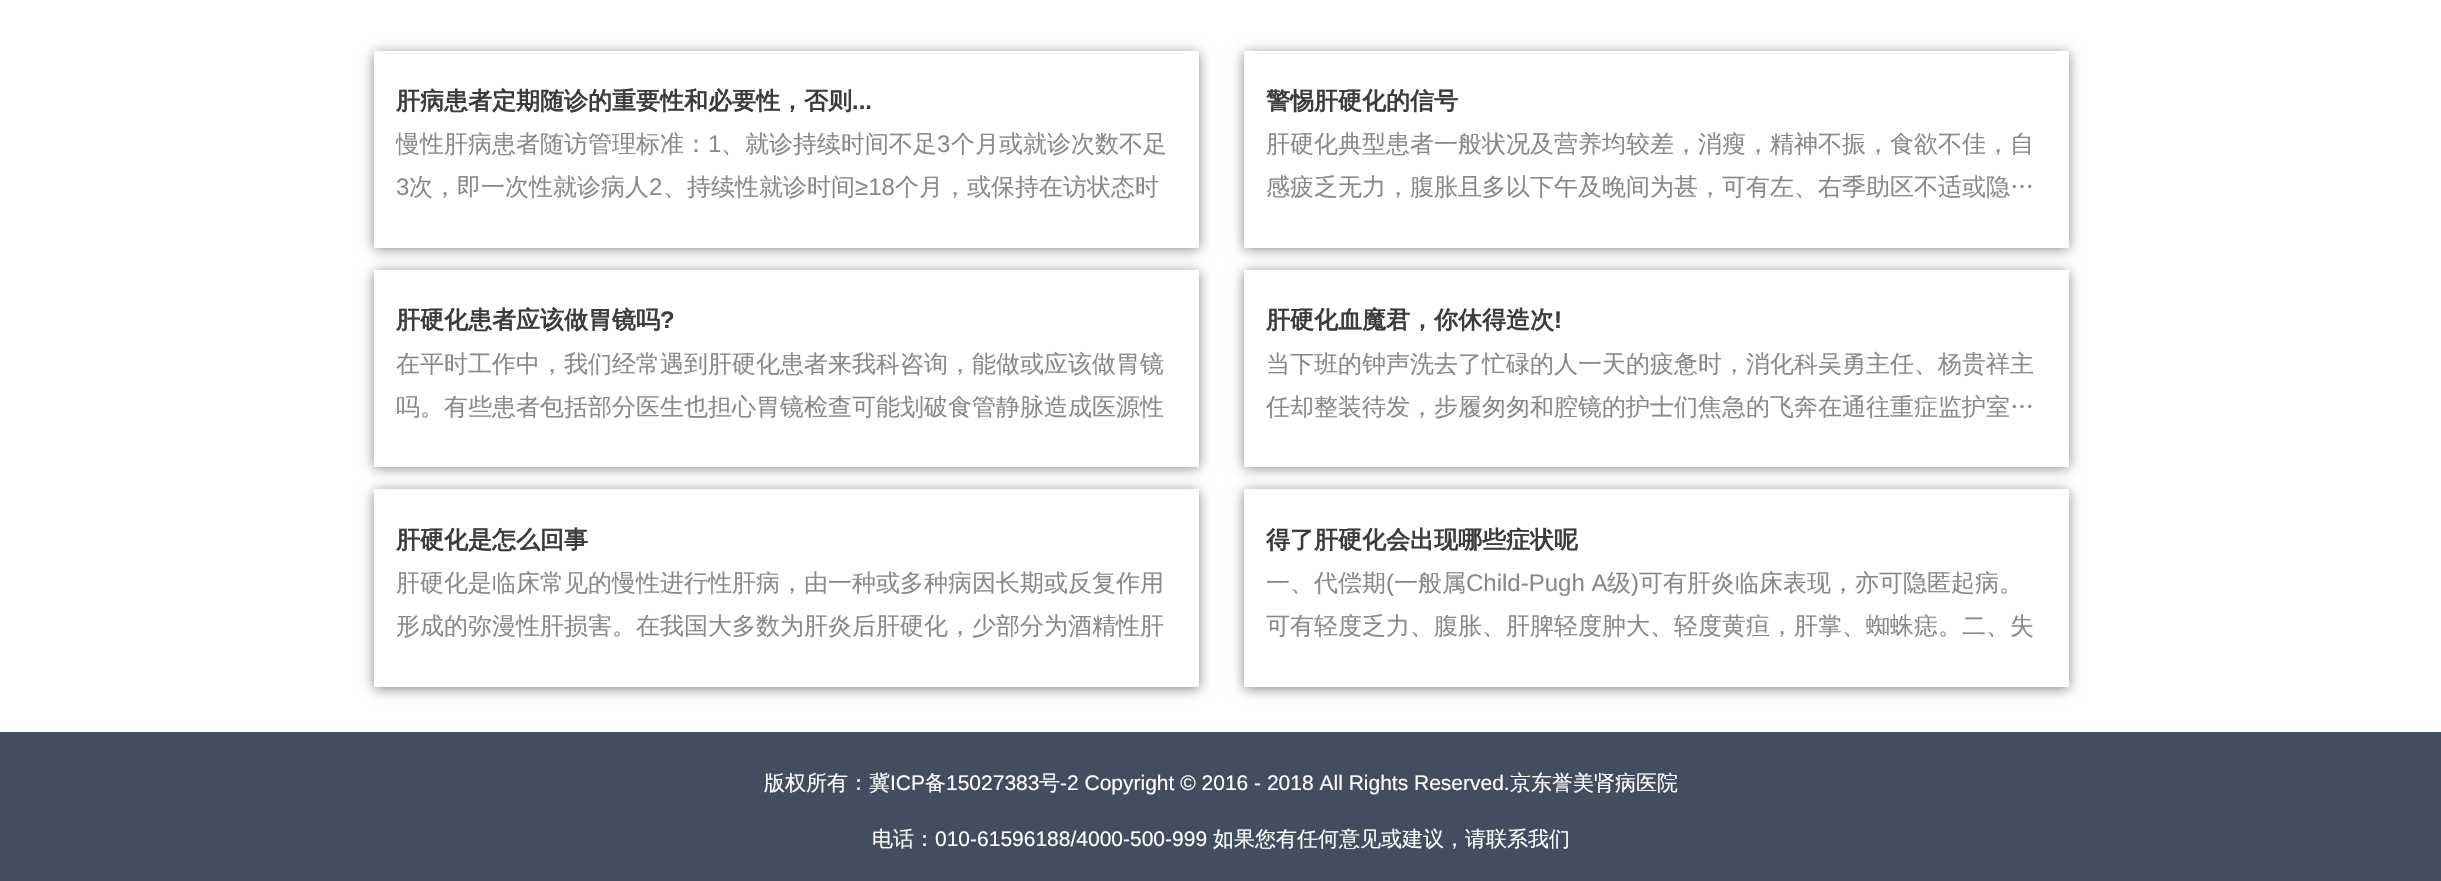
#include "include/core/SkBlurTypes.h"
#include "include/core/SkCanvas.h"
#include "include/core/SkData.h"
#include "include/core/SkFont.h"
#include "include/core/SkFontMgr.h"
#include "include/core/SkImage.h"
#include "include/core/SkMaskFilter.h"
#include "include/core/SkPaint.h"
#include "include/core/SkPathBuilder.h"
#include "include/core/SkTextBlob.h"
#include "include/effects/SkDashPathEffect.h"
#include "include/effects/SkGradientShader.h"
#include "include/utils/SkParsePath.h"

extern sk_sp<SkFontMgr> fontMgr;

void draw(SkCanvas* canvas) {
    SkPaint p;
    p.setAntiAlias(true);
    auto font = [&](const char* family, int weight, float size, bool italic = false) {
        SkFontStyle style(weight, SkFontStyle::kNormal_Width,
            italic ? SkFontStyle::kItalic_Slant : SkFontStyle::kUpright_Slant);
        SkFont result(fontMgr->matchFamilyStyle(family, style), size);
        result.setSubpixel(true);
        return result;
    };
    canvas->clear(0xFFFFFFFF);
    canvas->save();
    canvas->clipPath(SkPathBuilder(SkPathFillType::kEvenOdd).moveTo(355, 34).lineTo(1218, 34).lineTo(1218, 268).lineTo(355, 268).close().moveTo(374, 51).lineTo(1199, 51).lineTo(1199, 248).lineTo(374, 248).close().detach(), true);
    p.setColor(0xFF888888);
    p.setMaskFilter(SkMaskFilter::MakeBlur(kNormal_SkBlurStyle, 6));
    canvas->drawRect(SkRect::MakeLTRB(374, 53, 1199, 249), p);
    p.setMaskFilter(nullptr);
    canvas->restore();
    auto font1 = font("WenQuanYi Zen Hei", 700, 24);
    p.setColor(0xFF3C3C3C);
    canvas->drawString("肝病患者定期随诊的重要性和必要性，否则", 396, 109, font1, p);
    auto font2 = font("Liberation Sans", 700, 24);
    canvas->drawString("...", 852, 109, font2, p);
    auto font3 = font("WenQuanYi Zen Hei", 500, 24);
    p.setColor(0xFF898989);
    canvas->drawString("慢性肝病患者随访管理标准：", 396, 152, font3, p);
    auto font4 = font("Liberation Sans", 400, 24);
    canvas->drawString("1", 708, 152, font4, p);
    canvas->drawString("、就诊持续时间不足", 721, 152, font3, p);
    canvas->drawString("3", 937, 152, font4, p);
    canvas->drawString("个月或就诊次数不足", 951, 152, font3, p);
    canvas->drawString("3", 396, 195, font4, p);
    canvas->drawString("次，即一次性就诊病人", 409, 195, font3, p);
    canvas->drawString("2", 649, 195, font4, p);
    canvas->drawString("、持续性就诊时间", 663, 195, font3, p);
    canvas->drawString("≥18", 855, 195, font4, p);
    canvas->drawString("个月，或保持在访状态时", 895, 195, font3, p);
    canvas->save();
    canvas->clipPath(SkPathBuilder(SkPathFillType::kEvenOdd).moveTo(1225, 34).lineTo(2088, 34).lineTo(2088, 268).lineTo(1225, 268).close().moveTo(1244, 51).lineTo(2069, 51).lineTo(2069, 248).lineTo(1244, 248).close().detach(), true);
    p.setColor(0xFF888888);
    p.setMaskFilter(SkMaskFilter::MakeBlur(kNormal_SkBlurStyle, 6));
    canvas->drawRect(SkRect::MakeLTRB(1244, 53, 2069, 249), p);
    p.setMaskFilter(nullptr);
    canvas->restore();
    p.setColor(0xFF3C3C3C);
    canvas->drawString("警惕肝硬化的信号", 1266, 109, font1, p);
    p.setColor(0xFF898989);
    canvas->drawString("肝硬化典型患者一般状况及营养均较差，消瘦，精神不振，食欲不佳，自", 1266, 152, font3, p);
    canvas->drawString("感疲乏无力，腹胀且多以下午及晚间为甚，可有左、右季助区不适或隐…", 1266, 195, font3, p);
    canvas->save();
    canvas->clipPath(SkPathBuilder(SkPathFillType::kEvenOdd).moveTo(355, 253).lineTo(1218, 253).lineTo(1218, 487).lineTo(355, 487).close().moveTo(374, 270).lineTo(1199, 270).lineTo(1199, 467).lineTo(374, 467).close().detach(), true);
    p.setColor(0xFF888888);
    p.setMaskFilter(SkMaskFilter::MakeBlur(kNormal_SkBlurStyle, 6));
    canvas->drawRect(SkRect::MakeLTRB(374, 272, 1199, 468), p);
    p.setMaskFilter(nullptr);
    canvas->restore();
    p.setColor(0xFF3C3C3C);
    canvas->drawString("肝硬化患者应该做胃镜吗", 396, 328, font1, p);
    canvas->drawString("?", 660, 328, font2, p);
    p.setColor(0xFF898989);
    canvas->drawString("在平时工作中，我们经常遇到肝硬化患者来我科咨询，能做或应该做胃镜", 396, 372, font3, p);
    canvas->drawString("吗。有些患者包括部分医生也担心胃镜检查可能划破食管静脉造成医源性", 396, 415, font3, p);
    canvas->save();
    canvas->clipPath(SkPathBuilder(SkPathFillType::kEvenOdd).moveTo(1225, 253).lineTo(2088, 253).lineTo(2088, 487).lineTo(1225, 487).close().moveTo(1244, 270).lineTo(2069, 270).lineTo(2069, 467).lineTo(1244, 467).close().detach(), true);
    p.setColor(0xFF888888);
    p.setMaskFilter(SkMaskFilter::MakeBlur(kNormal_SkBlurStyle, 6));
    canvas->drawRect(SkRect::MakeLTRB(1244, 272, 2069, 468), p);
    p.setMaskFilter(nullptr);
    canvas->restore();
    p.setColor(0xFF3C3C3C);
    canvas->drawString("肝硬化血魔君，你休得造次", 1266, 328, font1, p);
    canvas->drawString("!", 1554, 328, font2, p);
    p.setColor(0xFF898989);
    canvas->drawString("当下班的钟声洗去了忙碌的人一天的疲惫时，消化科吴勇主任、杨贵祥主", 1266, 372, font3, p);
    canvas->drawString("任却整装待发，步履匆匆和腔镜的护士们焦急的飞奔在通往重症监护室…", 1266, 415, font3, p);
    canvas->save();
    canvas->clipPath(SkPathBuilder(SkPathFillType::kEvenOdd).moveTo(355, 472).lineTo(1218, 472).lineTo(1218, 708).lineTo(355, 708).close().moveTo(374, 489).lineTo(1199, 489).lineTo(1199, 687).lineTo(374, 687).close().detach(), true);
    p.setColor(0xFF888888);
    p.setMaskFilter(SkMaskFilter::MakeBlur(kNormal_SkBlurStyle, 6));
    canvas->drawRect(SkRect::MakeLTRB(374, 491, 1199, 689), p);
    p.setMaskFilter(nullptr);
    canvas->restore();
    p.setColor(0xFF3C3C3C);
    canvas->drawString("肝硬化是怎么回事", 396, 548, font1, p);
    p.setColor(0xFF898989);
    canvas->drawString("肝硬化是临床常见的慢性进行性肝病，由一种或多种病因长期或反复作用", 396, 591, font3, p);
    canvas->drawString("形成的弥漫性肝损害。在我国大多数为肝炎后肝硬化，少部分为酒精性肝", 396, 634, font3, p);
    canvas->save();
    canvas->clipPath(SkPathBuilder(SkPathFillType::kEvenOdd).moveTo(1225, 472).lineTo(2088, 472).lineTo(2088, 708).lineTo(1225, 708).close().moveTo(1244, 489).lineTo(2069, 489).lineTo(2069, 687).lineTo(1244, 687).close().detach(), true);
    p.setColor(0xFF888888);
    p.setMaskFilter(SkMaskFilter::MakeBlur(kNormal_SkBlurStyle, 6));
    canvas->drawRect(SkRect::MakeLTRB(1244, 491, 2069, 689), p);
    p.setMaskFilter(nullptr);
    canvas->restore();
    p.setColor(0xFF3C3C3C);
    canvas->drawString("得了肝硬化会出现哪些症状呢", 1266, 548, font1, p);
    p.setColor(0xFF898989);
    canvas->drawString("一、代偿期", 1266, 591, font3, p);
    canvas->drawString("(", 1386, 591, font4, p);
    canvas->drawString("一般属", 1394, 591, font3, p);
    canvas->drawString("Child-Pugh A", 1466, 591, font4, p);
    canvas->drawString("级", 1607, 591, font3, p);
    canvas->drawString(")", 1631, 591, font4, p);
    canvas->drawString("可有肝炎临床表现，亦可隐匿起病。", 1639, 591, font3, p);
    canvas->drawString("可有轻度乏力、腹胀、肝脾轻度肿大、轻度黄疸，肝掌、蜘蛛痣。二、失", 1266, 634, font3, p);
    p.setColor(0xFF434D60);
    canvas->drawRect(SkRect::MakeLTRB(0, 732, 2441, 881), p);
    auto font5 = font("WenQuanYi Zen Hei", 500, 21);
    p.setColor(0xFFFFFFFF);
    canvas->drawString("版权所有：冀", 764, 790, font5, p);
    auto font6 = font("Liberation Sans", 400, 21);
    canvas->drawString("ICP", 890, 790, font6, p);
    canvas->drawString("备", 925, 790, font5, p);
    canvas->drawString("15027383", 946, 790, font6, p);
    canvas->drawString("号", 1039, 790, font5, p);
    canvas->drawString("-2 Copyright © 2016 - 2018 All Rights Reserved.", 1060, 790, font6, p);
    canvas->drawString("京东誉美肾病医院", 1510, 790, font5, p);
    canvas->drawString("电话：", 872, 846, font5, p);
    canvas->drawString("010-61596188/4000-500-999", 935, 846, font6, p);
    canvas->drawString("如果您有任何意见或建议，请联系我们", 1213, 846, font5, p);
}
